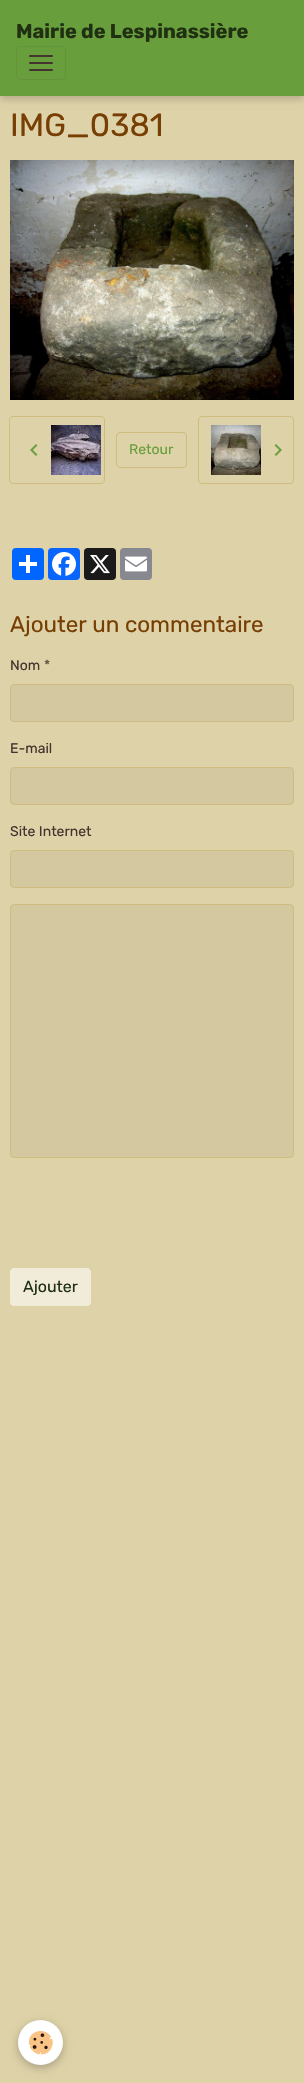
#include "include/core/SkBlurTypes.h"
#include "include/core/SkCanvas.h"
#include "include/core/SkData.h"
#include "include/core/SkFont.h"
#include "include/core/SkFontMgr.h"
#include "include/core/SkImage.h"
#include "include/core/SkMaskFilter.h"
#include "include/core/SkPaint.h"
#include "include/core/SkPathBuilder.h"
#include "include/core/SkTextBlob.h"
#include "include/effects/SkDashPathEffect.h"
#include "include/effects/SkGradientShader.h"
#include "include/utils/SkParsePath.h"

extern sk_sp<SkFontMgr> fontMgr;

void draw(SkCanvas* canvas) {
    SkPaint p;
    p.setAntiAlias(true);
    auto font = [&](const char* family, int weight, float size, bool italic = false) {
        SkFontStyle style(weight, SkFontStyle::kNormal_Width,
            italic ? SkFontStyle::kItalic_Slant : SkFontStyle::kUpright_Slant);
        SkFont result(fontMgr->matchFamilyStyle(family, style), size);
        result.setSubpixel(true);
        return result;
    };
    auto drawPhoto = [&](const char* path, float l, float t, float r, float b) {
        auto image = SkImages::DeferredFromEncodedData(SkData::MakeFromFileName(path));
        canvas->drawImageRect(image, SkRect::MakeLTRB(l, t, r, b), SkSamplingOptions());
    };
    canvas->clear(0xFFDED2A8);
    p.setColor(0x33000000);
    p.setMaskFilter(SkMaskFilter::MakeBlur(kNormal_SkBlurStyle, 4));
    canvas->drawRect(SkRect::MakeLTRB(0, 3, 304, 99), p);
    p.setMaskFilter(nullptr);
    p.setColor(0xFF699E3C);
    canvas->drawRect(SkRect::MakeLTRB(0, 0, 304, 96), p);
    auto font1 = font("Rubik", 700, 20);
    p.setColor(0xFF203012);
    canvas->drawString("Mairie de Lespinassière", 16, 38, font1, p);
    p.setStyle(SkPaint::kStroke_Style);
    p.setStrokeWidth(1);
    p.setColor(0xFF65933B);
    canvas->drawRoundRect(SkRect::MakeLTRB(16.5f, 46.5f, 65.5f, 79.5f), 3.5f, 3.5f, p);
    p.setStyle(SkPaint::kFill_Style);
    p.setColor(0xFF44332F);
    canvas->drawRoundRect(SkRect::MakeLTRB(29, 55, 53, 57), 1, 1, p);
    canvas->drawRoundRect(SkRect::MakeLTRB(29, 62, 53, 64), 1, 1, p);
    canvas->drawRoundRect(SkRect::MakeLTRB(29, 69, 53, 71), 1, 1, p);
    auto font2 = font("Rubik", 400, 32);
    p.setColor(0xFF783F04);
    canvas->drawString("IMG_0381", 10, 136, font2, p);
    drawPhoto("media/1.png", 10, 160, 294, 400);
    p.setStyle(SkPaint::kStroke_Style);
    p.setColor(0xFFCEBD7E);
    canvas->drawRoundRect(SkRect::MakeLTRB(9.5f, 416.5f, 104.5f, 483.5f), 3.5f, 3.5f, p);
    drawPhoto("media/2.png", 30, 444, 38, 456);
    drawPhoto("media/3.png", 51, 425, 101, 475);
    canvas->drawRoundRect(SkRect::MakeLTRB(116.5f, 432.5f, 186.5f, 467.5f), 3.5f, 3.5f, p);
    auto font3 = font("Rubik", 400, 14);
    p.setStyle(SkPaint::kFill_Style);
    p.setColor(0xFF699E3C);
    canvas->drawString("Retour", 129, 454, font3, p);
    p.setStyle(SkPaint::kStroke_Style);
    p.setColor(0xFFCEBD7E);
    canvas->drawRoundRect(SkRect::MakeLTRB(198.5f, 416.5f, 293.5f, 483.5f), 3.5f, 3.5f, p);
    drawPhoto("media/4.png", 211, 425, 261, 475);
    drawPhoto("media/5.png", 274, 444, 282, 456);
    p.setStyle(SkPaint::kFill_Style);
    p.setColor(0xFF0166FF);
    canvas->drawRoundRect(SkRect::MakeLTRB(12, 548, 44, 580), 4, 4, p);
    p.setColor(0xFFFFFFFF);
    canvas->drawRect(SkRect::MakeLTRB(26, 555, 30, 573), p);
    canvas->drawRect(SkRect::MakeLTRB(19, 562, 37, 566), p);
    p.setColor(0xFF0866FF);
    canvas->drawRoundRect(SkRect::MakeLTRB(48, 548, 80, 580), 4, 4, p);
    drawPhoto("media/6.png", 52, 552, 76, 576);
    p.setColor(0xFF1A1A1A);
    canvas->drawRoundRect(SkRect::MakeLTRB(84, 548, 116, 580), 4, 4, p);
    drawPhoto("media/7.png", 90, 555, 110, 574);
    p.setColor(0xFF888990);
    canvas->drawRoundRect(SkRect::MakeLTRB(120, 548, 152, 580), 4, 4, p);
    drawPhoto("media/8.png", 125, 556, 147, 572);
    auto font4 = font("Rubik", 400, 22.4f);
    p.setColor(0xFF783F04);
    canvas->drawString("Ajouter un commentaire", 10, 632, font4, p);
    p.setColor(0xFF44332F);
    canvas->drawString("Nom", 10, 670, font3, p);
    p.setColor(0xFF635347);
    canvas->drawString("*", 44, 670, font3, p);
    p.setColor(0xFFD3C8A0);
    canvas->drawRoundRect(SkRect::MakeLTRB(10.5f, 684.5f, 293.5f, 721.5f), 3.5f, 3.5f, p);
    p.setStyle(SkPaint::kStroke_Style);
    p.setColor(0xFFCEBD7E);
    canvas->drawRoundRect(SkRect::MakeLTRB(10.5f, 684.5f, 293.5f, 721.5f), 3.5f, 3.5f, p);
    p.setStyle(SkPaint::kFill_Style);
    p.setColor(0xFF44332F);
    canvas->drawString("E-mail", 10, 753, font3, p);
    p.setColor(0xFFD3C8A0);
    canvas->drawRoundRect(SkRect::MakeLTRB(10.5f, 767.5f, 293.5f, 804.5f), 3.5f, 3.5f, p);
    p.setStyle(SkPaint::kStroke_Style);
    p.setColor(0xFFCEBD7E);
    canvas->drawRoundRect(SkRect::MakeLTRB(10.5f, 767.5f, 293.5f, 804.5f), 3.5f, 3.5f, p);
    p.setStyle(SkPaint::kFill_Style);
    p.setColor(0xFF44332F);
    canvas->drawString("Site Internet", 10, 836, font3, p);
    p.setColor(0xFFD3C8A0);
    canvas->drawRoundRect(SkRect::MakeLTRB(10.5f, 850.5f, 293.5f, 887.5f), 3.5f, 3.5f, p);
    p.setStyle(SkPaint::kStroke_Style);
    p.setColor(0xFFCEBD7E);
    canvas->drawRoundRect(SkRect::MakeLTRB(10.5f, 850.5f, 293.5f, 887.5f), 3.5f, 3.5f, p);
    p.setStyle(SkPaint::kFill_Style);
    p.setColor(0xFFD3C8A0);
    canvas->drawRoundRect(SkRect::MakeLTRB(10.5f, 904.5f, 293.5f, 1157.5f), 3.5f, 3.5f, p);
    p.setStyle(SkPaint::kStroke_Style);
    p.setColor(0xFFCEBD7E);
    canvas->drawRoundRect(SkRect::MakeLTRB(10.5f, 904.5f, 293.5f, 1157.5f), 3.5f, 3.5f, p);
    p.setStyle(SkPaint::kFill_Style);
    p.setColor(0xFFF1ECDA);
    canvas->drawRoundRect(SkRect::MakeLTRB(10.5f, 1268.5f, 90.5f, 1305.5f), 3.5f, 3.5f, p);
    p.setStyle(SkPaint::kStroke_Style);
    canvas->drawRoundRect(SkRect::MakeLTRB(10.5f, 1268.5f, 90.5f, 1305.5f), 3.5f, 3.5f, p);
    auto font5 = font("Rubik", 400, 16);
    p.setStyle(SkPaint::kFill_Style);
    p.setColor(0xFF203012);
    canvas->drawString("Ajouter", 23, 1292, font5, p);
    p.setColor(0x3D000000);
    p.setMaskFilter(SkMaskFilter::MakeBlur(kNormal_SkBlurStyle, 5));
    canvas->drawRoundRect(SkRect::MakeLTRB(18, 2023, 63, 2068), 22.5f, 22.5f, p);
    p.setMaskFilter(nullptr);
    p.setColor(0xFFFFFFFF);
    canvas->drawCircle(40.5f, 2042.5f, 22.5f, p);
    drawPhoto("media/9.png", 28, 2030, 53, 2055);
}
